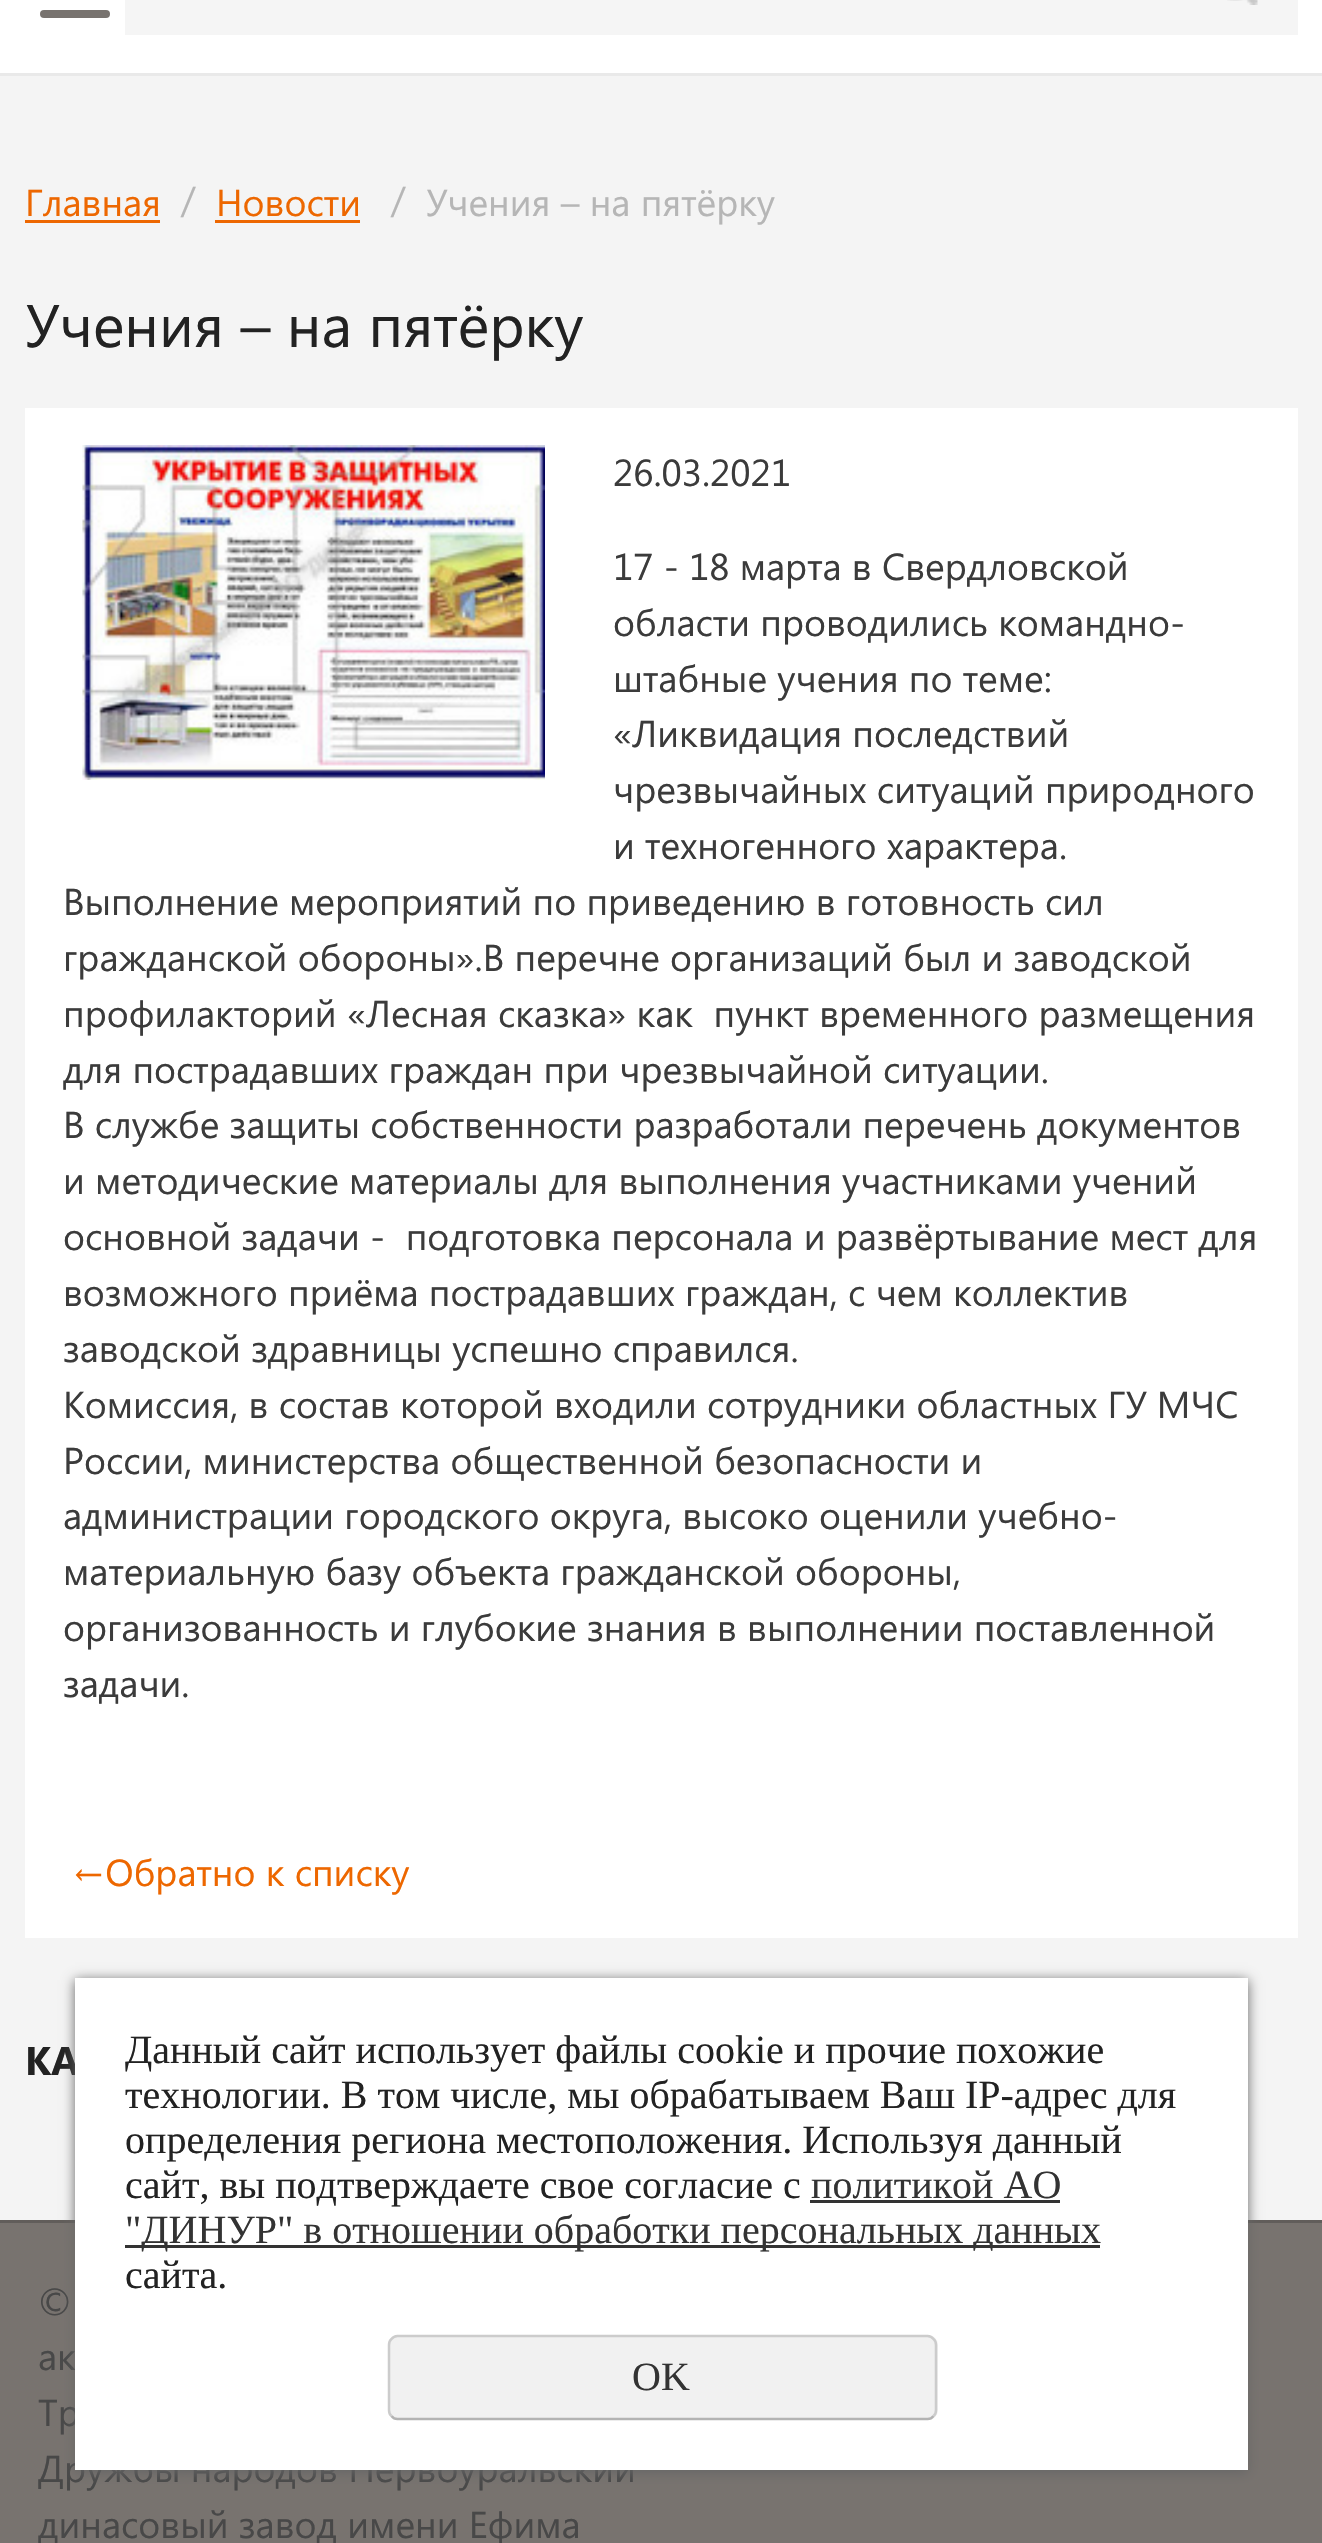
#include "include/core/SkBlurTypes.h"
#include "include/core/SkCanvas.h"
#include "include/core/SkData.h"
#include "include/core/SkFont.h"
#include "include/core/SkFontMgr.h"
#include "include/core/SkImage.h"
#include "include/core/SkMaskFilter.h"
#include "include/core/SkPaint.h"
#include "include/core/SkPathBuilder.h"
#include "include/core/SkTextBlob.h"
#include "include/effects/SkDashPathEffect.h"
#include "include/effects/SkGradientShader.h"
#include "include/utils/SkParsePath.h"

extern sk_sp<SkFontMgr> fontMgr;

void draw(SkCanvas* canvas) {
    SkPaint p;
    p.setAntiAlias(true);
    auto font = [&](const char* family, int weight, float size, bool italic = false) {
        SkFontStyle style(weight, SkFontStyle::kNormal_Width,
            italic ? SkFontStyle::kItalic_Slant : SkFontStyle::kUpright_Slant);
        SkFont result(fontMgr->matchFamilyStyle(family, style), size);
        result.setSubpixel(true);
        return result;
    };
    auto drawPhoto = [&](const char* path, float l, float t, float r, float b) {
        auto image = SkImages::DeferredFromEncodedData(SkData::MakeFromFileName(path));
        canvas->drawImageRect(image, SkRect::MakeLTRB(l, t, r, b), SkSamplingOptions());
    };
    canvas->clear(0xFFF4F4F4);
    p.setColor(0xFFFFFFFF);
    canvas->drawRect(SkRect::MakeLTRB(0, 0, 1322, 73), p);
    p.setColor(0xFFE9E9E9);
    canvas->drawRect(SkRect::MakeLTRB(0, 73, 1322, 76), p);
    p.setColor(0xFF78736F);
    canvas->drawRoundRect(SkRect::MakeLTRB(40, 10, 110, 18), 4, 4, p);
    p.setColor(0xFFF5F5F5);
    canvas->drawRect(SkRect::MakeLTRB(125, 0, 1298, 35), p);
    drawPhoto("media/1.png", 1227, 0, 1258, 5);
    auto font1 = font("Segoe UI", 400, 37.5f);
    p.setColor(0xFFED6700);
    canvas->drawString("Главная", 25, 216, font1, p);
    canvas->drawRect(SkRect::MakeLTRB(25, 220, 160, 223), p);
    p.setColor(0xFFB6B6B6);
    canvas->drawString("/", 181, 213, font1, p);
    p.setColor(0xFFED6700);
    canvas->drawString("Новости", 216, 216, font1, p);
    canvas->drawRect(SkRect::MakeLTRB(215, 220, 360, 223), p);
    p.setColor(0xFFB6B6B6);
    canvas->drawString("/", 391, 213, font1, p);
    canvas->drawString("Учения – на пятёрку", 426, 216, font1, p);
    auto font2 = font("Segoe UI", 400, 60);
    p.setColor(0xFF222222);
    canvas->drawString("Учения – на пятёрку", 25, 347, font2, p);
    p.setColor(0xFFFFFFFF);
    canvas->drawRect(SkRect::MakeLTRB(25, 408, 1298, 1938), p);
    drawPhoto("media/2.png", 82, 445, 545, 780);
    p.setColor(0xFF3B3B3B);
    {
        const struct { const char* s; float x, y; } items[] = {
            {"26.03.2021", 613, 486},
            {"17 - 18 марта в Свердловской", 613, 580},
            {"области проводились командно-", 613, 636},
            {"штабные учения по теме:", 613, 692},
            {"«Ликвидация последствий", 613, 747},
            {"чрезвычайных ситуаций природного", 613, 803},
            {"и техногенного характера.", 613, 859},
            {"Выполнение мероприятий по приведению в готовность сил", 63, 915},
            {"гражданской обороны».В перечне организаций был и заводской", 63, 971},
            {"профилакторий «Лесная сказка» как  пункт временного размещения", 63, 1027},
            {"для пострадавших граждан при чрезвычайной ситуации.", 63, 1083},
            {"В службе защиты собственности разработали перечень документов", 63, 1138},
            {"и методические материалы для выполнения участниками учений", 63, 1194},
            {"основной задачи -  подготовка персонала и развёртывание мест для", 63, 1250},
            {"возможного приёма пострадавших граждан, с чем коллектив", 63, 1306},
            {"заводской здравницы успешно справился.", 63, 1362},
            {"Комиссия, в состав которой входили сотрудники областных ГУ МЧС", 63, 1418},
            {"России, министерства общественной безопасности и", 63, 1474},
            {"администрации городского округа, высоко оценили учебно-", 63, 1529},
            {"материальную базу объекта гражданской обороны,", 63, 1585},
            {"организованность и глубокие знания в выполнении поставленной", 63, 1641},
            {"задачи.", 63, 1697},
        };
        for (auto [s, x, y] : items) {
            canvas->drawString(s, x, y, font1, p);
        }
    }
    p.setColor(0xFFED6700);
    canvas->drawString("←Обратно к списку", 73, 1886, font1, p);
    auto font3 = font("Segoe UI", 700, 40);
    p.setColor(0xFF222222);
    canvas->drawString("КА", 25, 2075, font3, p);
    p.setColor(0xFF78736F);
    canvas->drawRect(SkRect::MakeLTRB(0, 2223, 1322, 2543), p);
    p.setColor(0xFF615D5A);
    canvas->drawRect(SkRect::MakeLTRB(0, 2220, 1322, 2223), p);
    p.setColor(0xFF484848);
    {
        const struct { const char* s; float x, y; } items[] = {
            {"©", 38, 2315},
            {"ак", 38, 2370},
            {"Тр", 38, 2426},
            {"Дружбы народов Первоуральский", 38, 2482},
            {"динасовый завод имени Ефима", 38, 2538},
        };
        for (auto [s, x, y] : items) {
            canvas->drawString(s, x, y, font1, p);
        }
    }
    p.setColor(0xFF666666);
    p.setMaskFilter(SkMaskFilter::MakeBlur(kNormal_SkBlurStyle, 6));
    canvas->drawRect(SkRect::MakeLTRB(75, 1980, 1248, 2473), p);
    p.setMaskFilter(nullptr);
    p.setColor(0xFFFFFFFF);
    canvas->drawRect(SkRect::MakeLTRB(75, 1978, 1248, 2470), p);
    auto font4 = font("Liberation Serif", 400, 40);
    p.setColor(0xFF222222);
    {
        const struct { const char* s; float x, y; } items[] = {
            {"Данный сайт использует файлы cookie и прочие похожие", 125, 2063},
            {"технологии. В том числе, мы обрабатываем Ваш IP-адрес для", 125, 2108},
            {"определения региона местоположения. Используя данный", 125, 2153},
            {"сайт, вы подтверждаете свое согласие с", 125, 2198},
        };
        for (auto [s, x, y] : items) {
            canvas->drawString(s, x, y, font4, p);
        }
    }
    p.setColor(0xFF333333);
    canvas->drawString("политикой АО", 811, 2198, font4, p);
    canvas->drawRect(SkRect::MakeLTRB(810, 2200, 1060, 2203), p);
    canvas->drawRect(SkRect::MakeLTRB(125, 2245, 1100, 2248), p);
    canvas->drawString("\"ДИНУР\" в отношении обработки персональных данных", 125, 2243, font4, p);
    p.setColor(0xFF222222);
    canvas->drawString("сайта.", 125, 2288, font4, p);
    p.setColor(0xFFF1F1F1);
    canvas->drawRoundRect(SkRect::MakeLTRB(388, 2335, 938, 2420), 10, 10, p);
    p.setStyle(SkPaint::kStroke_Style);
    p.setStrokeWidth(2.5f);
    p.setColor(0xFFB3B3B3);
    canvas->drawPath(SkPathBuilder().moveTo(933.5f, 2416).cubicTo(932, 2418, 930, 2419, 927.5f, 2419).lineTo(397.5f, 2419).cubicTo(395, 2419, 393, 2418, 391.5f, 2416).detach(), p);
    p.setColor(0xFFCCCCCC);
    canvas->drawPath(SkPathBuilder().moveTo(391.5f, 2416).cubicTo(389.5f, 2414.5f, 389, 2412.5f, 389, 2410).lineTo(389, 2345).cubicTo(389, 2342.5f, 389.5f, 2340.5f, 391.5f, 2339).cubicTo(393, 2337, 395, 2336, 397.5f, 2336).lineTo(927.5f, 2336).cubicTo(930, 2336, 932, 2337, 933.5f, 2339).cubicTo(935.5f, 2340.5f, 936, 2342.5f, 936, 2345).lineTo(936, 2410).cubicTo(936, 2412.5f, 935.5f, 2414.5f, 933.5f, 2416).detach(), p);
    p.setStyle(SkPaint::kFill_Style);
    p.setColor(0xFF333333);
    canvas->drawString("OK", 632, 2390, font4, p);
}
